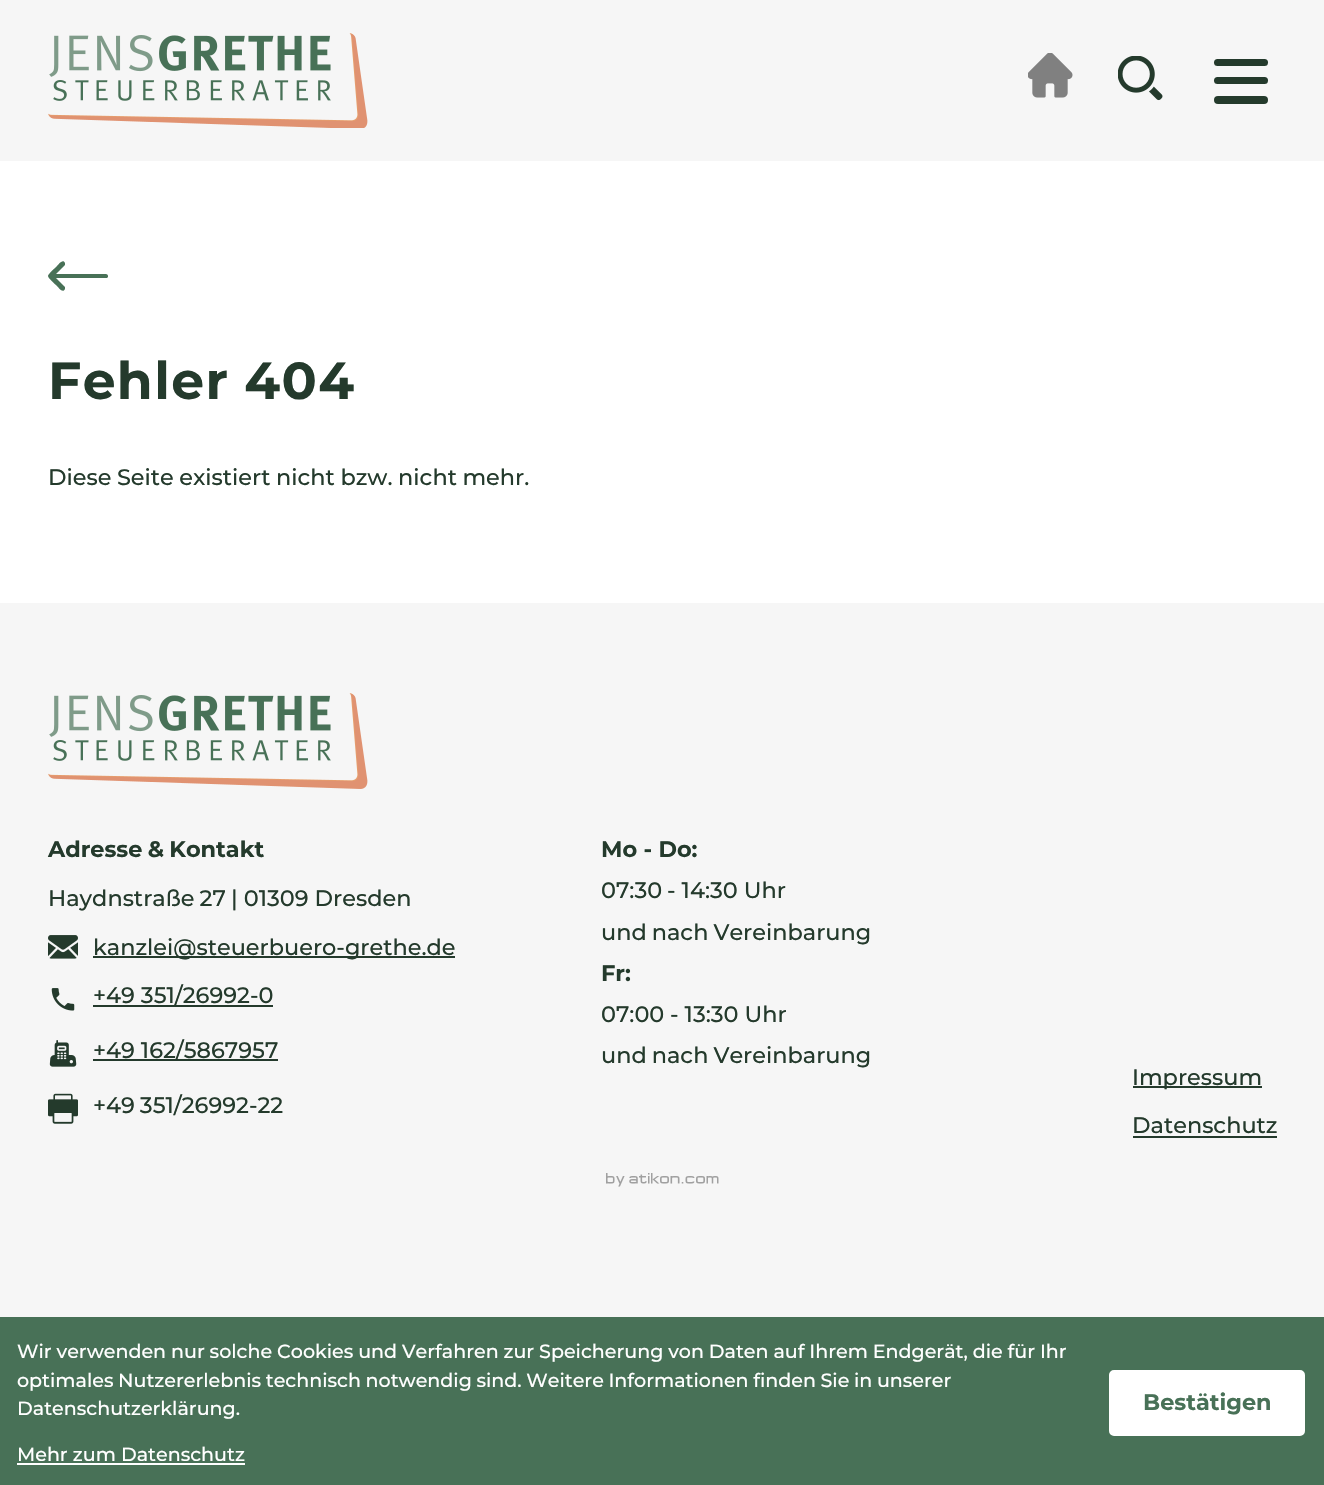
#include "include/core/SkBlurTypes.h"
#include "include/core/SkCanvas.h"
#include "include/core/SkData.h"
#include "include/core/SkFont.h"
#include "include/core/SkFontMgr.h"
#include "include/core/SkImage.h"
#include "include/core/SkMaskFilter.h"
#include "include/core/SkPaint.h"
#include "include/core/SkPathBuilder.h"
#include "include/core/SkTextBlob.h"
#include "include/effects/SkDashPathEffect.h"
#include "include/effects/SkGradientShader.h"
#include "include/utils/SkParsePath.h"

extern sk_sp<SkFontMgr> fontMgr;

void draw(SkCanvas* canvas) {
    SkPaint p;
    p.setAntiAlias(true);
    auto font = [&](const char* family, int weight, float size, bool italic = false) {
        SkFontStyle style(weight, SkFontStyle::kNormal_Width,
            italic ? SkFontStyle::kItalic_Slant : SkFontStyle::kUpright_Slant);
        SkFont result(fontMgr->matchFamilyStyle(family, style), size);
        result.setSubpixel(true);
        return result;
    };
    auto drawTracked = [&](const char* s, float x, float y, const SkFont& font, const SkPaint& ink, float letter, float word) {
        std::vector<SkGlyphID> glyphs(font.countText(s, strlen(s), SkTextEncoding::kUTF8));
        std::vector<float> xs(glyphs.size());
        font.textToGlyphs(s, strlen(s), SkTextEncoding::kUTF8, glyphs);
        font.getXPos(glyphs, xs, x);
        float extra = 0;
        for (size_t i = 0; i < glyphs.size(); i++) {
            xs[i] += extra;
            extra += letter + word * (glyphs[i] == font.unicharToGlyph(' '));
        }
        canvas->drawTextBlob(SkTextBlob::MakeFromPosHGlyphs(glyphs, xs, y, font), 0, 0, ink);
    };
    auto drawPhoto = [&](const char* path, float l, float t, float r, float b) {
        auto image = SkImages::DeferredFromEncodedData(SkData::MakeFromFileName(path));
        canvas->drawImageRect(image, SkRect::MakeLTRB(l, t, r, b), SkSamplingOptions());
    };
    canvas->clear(0xFFFFFFFF);
    p.setColor(0xFFF6F6F6);
    canvas->drawRect(SkRect::MakeLTRB(0, 0, 1324, 161), p);
    drawPhoto("media/1.png", 48, 33, 368, 128);
    drawPhoto("media/2.png", 1028, 53, 1073, 98);
    drawPhoto("media/3.png", 1118, 56, 1163, 101);
    p.setColor(0xFF243A2C);
    canvas->drawRoundRect(SkRect::MakeLTRB(1214, 59, 1268, 66), 3.5f, 3.5f, p);
    canvas->drawRoundRect(SkRect::MakeLTRB(1214, 77, 1268, 84), 3.5f, 3.5f, p);
    canvas->drawRoundRect(SkRect::MakeLTRB(1214, 96, 1268, 104), 4, 4, p);
    p.setColor(0xFF487157);
    canvas->drawPath(SkPathBuilder().moveTo(106, 274).lineTo(56, 274).lineTo(65, 265).lineTo(65, 263).cubicTo(63, 258, 58, 265, 57, 266).cubicTo(55, 268, 48, 274, 48, 276).cubicTo(48, 278, 55, 284, 57, 286).cubicTo(58, 287, 63, 294, 65, 289).lineTo(65, 287).lineTo(56, 278).lineTo(107, 278).cubicTo(109, 277, 108, 274, 106, 274).close().detach(), p);
    auto font1 = font("Montserrat", 700, 52);
    p.setColor(0xFF243A2C);
    drawTracked("Fehler 404", 48, 399, font1, p, 1.4f, -1);
    auto font2 = font("Montserrat", 500, 22.4f);
    drawTracked("Diese Seite existiert nicht bzw. nicht mehr.", 48, 485, font2, p, 0, -0.5f);
    p.setColor(0xFFF6F6F6);
    canvas->drawRect(SkRect::MakeLTRB(0, 603, 1324, 1317), p);
    drawPhoto("media/4.png", 48, 693, 368, 789);
    auto font3 = font("Montserrat", 700, 22.4f);
    p.setColor(0xFF243A2C);
    drawTracked("Adresse & Kontakt", 48, 857, font3, p, 0, -1);
    drawTracked("Haydnstraße 27", 48, 906, font2, p, 0, -1);
    canvas->drawString("| 01309 Dresden", 231, 906, font2, p);
    drawPhoto("media/5.png", 48, 935, 78, 959);
    canvas->drawRect(SkRect::MakeLTRB(93, 956, 455, 958), p);
    canvas->drawString("kanzlei@steuerbuero-grethe.de", 93, 955, font2, p);
    drawPhoto("media/6.png", 51, 988, 75, 1011);
    canvas->drawRect(SkRect::MakeLTRB(93, 1005, 273, 1007), p);
    canvas->drawString("+49 351/26992-0", 93, 1003, font2, p);
    drawPhoto("media/7.png", 49, 1040, 77, 1067);
    canvas->drawRect(SkRect::MakeLTRB(93, 1059, 278, 1061), p);
    canvas->drawString("+49 162/5867957", 93, 1058, font2, p);
    drawPhoto("media/8.png", 48, 1093, 78, 1124);
    drawTracked("+49 351/26992-22", 93, 1113, font2, p, 0, -1);
    canvas->drawString("Mo - Do:", 601, 857, font3, p);
    canvas->drawString("07:30", 601, 898, font2, p);
    canvas->drawString("- 14:30 Uhr", 667, 898, font2, p);
    drawTracked("und nach Vereinbarung", 601, 940, font2, p, 0, -1);
    canvas->drawString("Fr:", 601, 981, font3, p);
    canvas->drawString("07:00", 601, 1022, font2, p);
    canvas->drawString("- 13:30 Uhr", 670, 1022, font2, p);
    drawTracked("und nach Vereinbarung", 601, 1063, font2, p, 0, -1);
    canvas->drawRect(SkRect::MakeLTRB(1133, 1086, 1262, 1088), p);
    canvas->drawString("Impressum", 1132, 1085, font2, p);
    canvas->drawString("Datenschutz", 1132, 1133, font2, p);
    canvas->drawRect(SkRect::MakeLTRB(1133, 1136, 1277, 1138), p);
    drawPhoto("media/9.png", 606, 1173, 719, 1187);
    p.setColor(0xFF487157);
    canvas->drawRect(SkRect::MakeLTRB(0, 1317, 1324, 1485), p);
    auto font4 = font("Montserrat", 500, 19.07f);
    p.setColor(0xFFFFFFFF);
    drawTracked("Wir verwenden nur solche Cookies und Verfahren zur Speicherung von Daten auf Ihrem Endgerät, die für Ihr", 17, 1358, font4, p, 0, -0.25f);
    drawTracked("optimales Nutzererlebnis technisch notwendig sind. Weitere Informationen finden Sie in unserer", 17, 1387, font4, p, 0, -0.5f);
    canvas->drawString("Datenschutzerklärung.", 17, 1415, font4, p);
    canvas->drawRoundRect(SkRect::MakeLTRB(1107.5f, 1368.5f, 1306.5f, 1437.5f), 6.5f, 6.5f, p);
    p.setStyle(SkPaint::kStroke_Style);
    p.setStrokeWidth(3);
    p.setColor(0xFF487157);
    canvas->drawRoundRect(SkRect::MakeLTRB(1107.5f, 1368.5f, 1306.5f, 1437.5f), 6.5f, 6.5f, p);
    p.setStyle(SkPaint::kFill_Style);
    canvas->drawString("Bestätigen", 1143, 1410, font3, p);
    p.setColor(0xFFFFFFFF);
    canvas->drawString("Mehr zum Datenschutz", 17, 1461, font4, p);
    canvas->drawRect(SkRect::MakeLTRB(17, 1463, 245, 1465), p);
}
